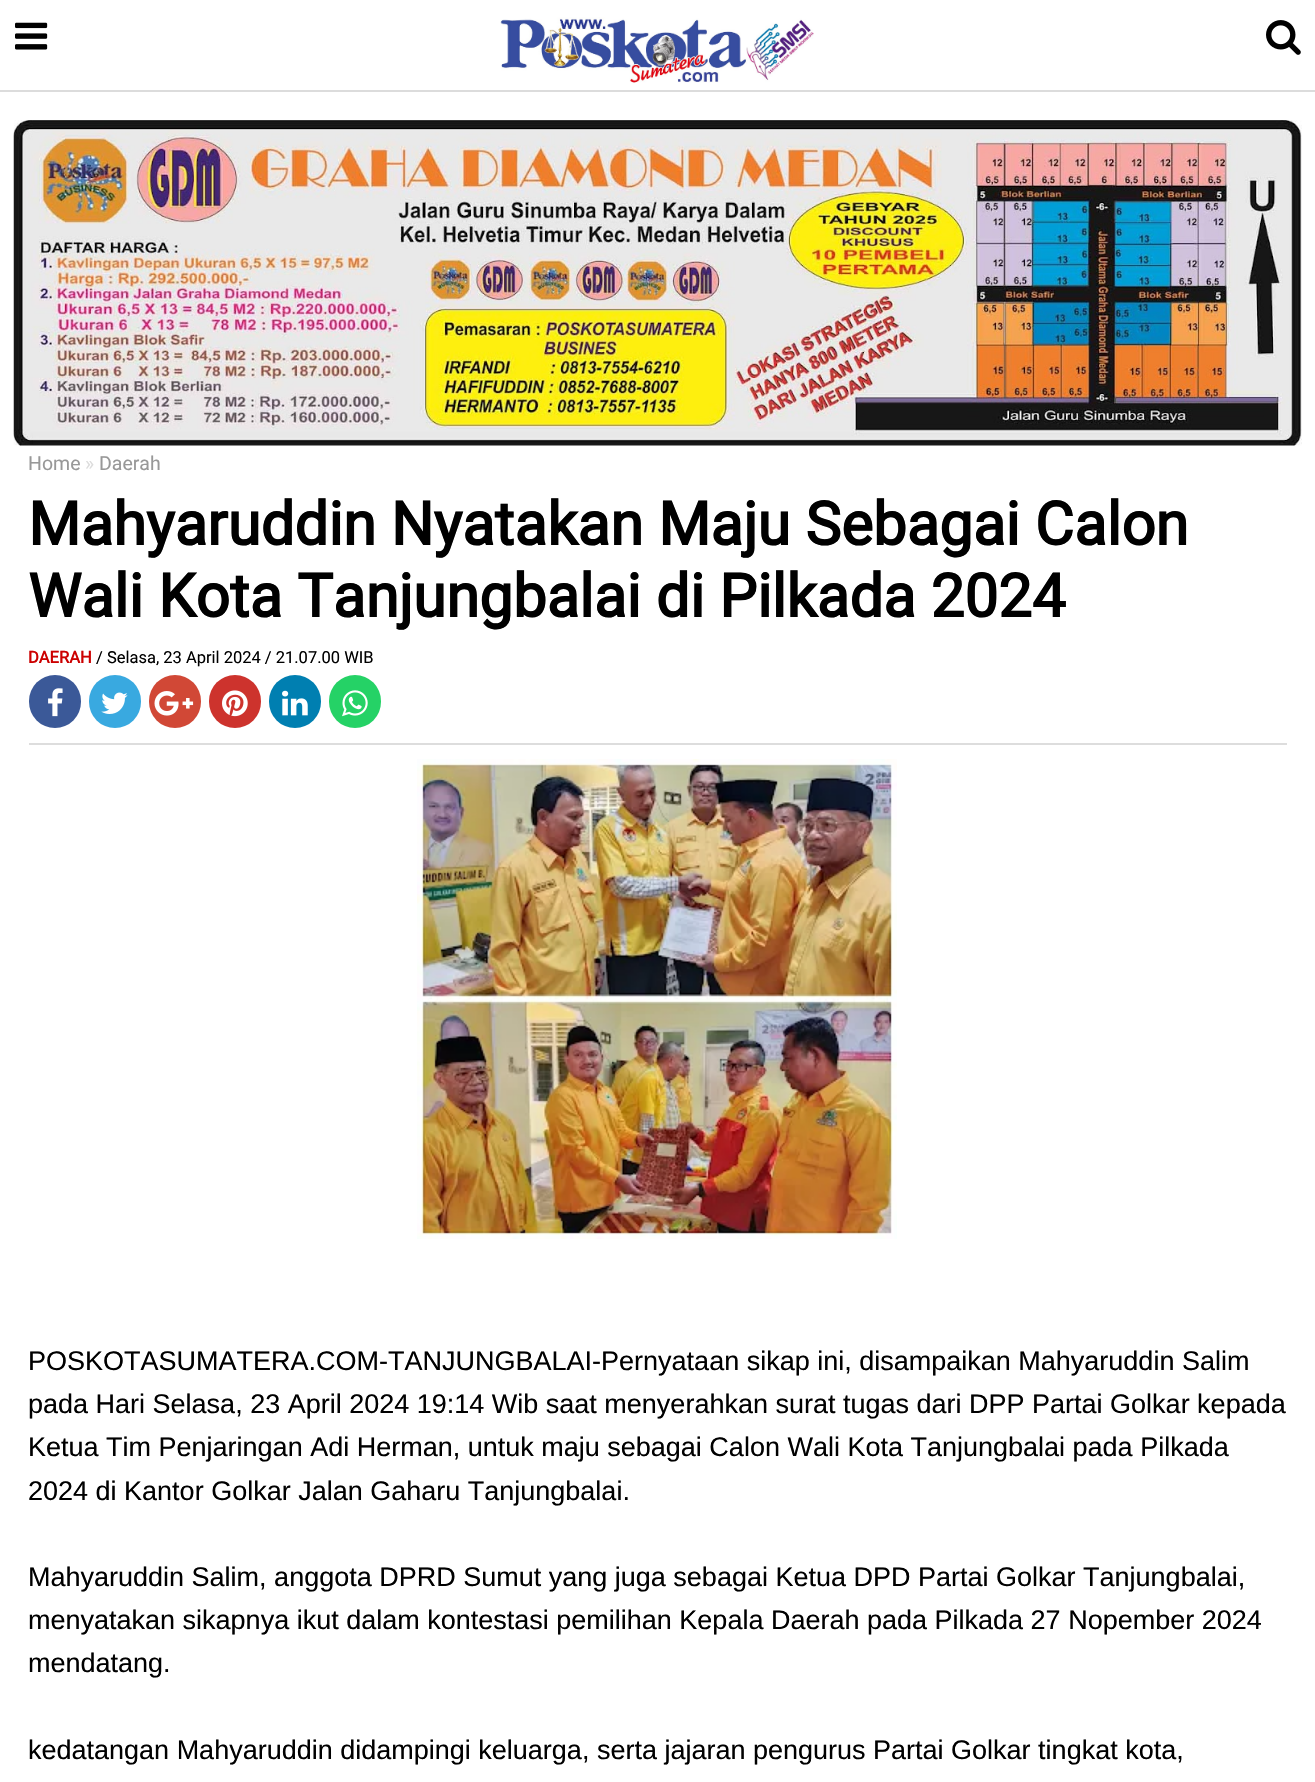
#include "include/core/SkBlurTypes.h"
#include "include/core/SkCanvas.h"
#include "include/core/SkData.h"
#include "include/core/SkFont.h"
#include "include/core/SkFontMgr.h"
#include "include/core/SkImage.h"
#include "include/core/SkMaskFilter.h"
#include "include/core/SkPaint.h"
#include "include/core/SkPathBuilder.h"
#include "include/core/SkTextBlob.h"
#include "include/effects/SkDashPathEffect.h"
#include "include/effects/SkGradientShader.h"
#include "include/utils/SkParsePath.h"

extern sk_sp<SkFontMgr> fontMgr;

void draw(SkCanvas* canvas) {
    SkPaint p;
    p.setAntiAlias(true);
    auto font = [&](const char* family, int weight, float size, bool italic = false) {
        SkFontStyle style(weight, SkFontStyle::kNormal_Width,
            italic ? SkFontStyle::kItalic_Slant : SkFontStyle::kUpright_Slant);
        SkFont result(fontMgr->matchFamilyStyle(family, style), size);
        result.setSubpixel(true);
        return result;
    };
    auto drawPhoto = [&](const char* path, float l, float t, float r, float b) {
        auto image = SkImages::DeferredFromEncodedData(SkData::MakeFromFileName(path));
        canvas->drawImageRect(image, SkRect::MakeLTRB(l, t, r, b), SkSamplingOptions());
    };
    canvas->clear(0xFFFFFFFF);
    p.setColor(0xFFDCDCDC);
    canvas->drawRect(SkRect::MakeLTRB(0, 90, 1315, 92), p);
    drawPhoto("media/1.png", 500, 17, 814, 83);
    drawPhoto("media/2.png", 15, 22, 48, 50);
    drawPhoto("media/3.png", 1266, 20, 1301, 55);
    drawPhoto("media/4.png", 13, 120, 1302, 446);
    auto font1 = font("Roboto", 400, 19.5f);
    p.setColor(0xFF989898);
    canvas->drawString("Home", 28, 470, font1, p);
    p.setColor(0xFFDCDCDC);
    canvas->drawString("»", 85, 470, font1, p);
    p.setColor(0xFF989898);
    canvas->drawString("Daerah", 99, 470, font1, p);
    auto font2 = font("Roboto", 700, 60);
    p.setColor(0xFF000000);
    canvas->drawString("Mahyaruddin Nyatakan Maju Sebagai Calon", 28, 545, font2, p);
    canvas->drawString("Wali Kota Tanjungbalai di Pilkada 2024", 28, 617, font2, p);
    auto font3 = font("Roboto", 700, 16.5f);
    p.setColor(0xFFCC0000);
    canvas->drawString("DAERAH", 28, 663, font3, p);
    auto font4 = font("Roboto", 400, 16.5f);
    p.setColor(0xFF000000);
    canvas->drawString("/ Selasa, 23 April 2024 / 21.07.00 WIB", 96, 663, font4, p);
    p.setColor(0xFF3B5998);
    canvas->drawRoundRect(SkRect::MakeLTRB(29, 675, 81, 728), 26, 26, p);
    drawPhoto("media/5.png", 48, 688, 63, 717);
    p.setColor(0xFF39A9E0);
    canvas->drawRoundRect(SkRect::MakeLTRB(89, 675, 141, 728), 26, 26, p);
    drawPhoto("media/6.png", 101, 692, 128, 714);
    p.setColor(0xFFD14836);
    canvas->drawRoundRect(SkRect::MakeLTRB(149, 675, 201, 728), 26, 26, p);
    drawPhoto("media/7.png", 154, 691, 194, 716);
    p.setColor(0xFFCD332D);
    canvas->drawRoundRect(SkRect::MakeLTRB(209, 675, 261, 728), 26, 26, p);
    drawPhoto("media/8.png", 222, 690, 248, 717);
    p.setColor(0xFF007FB1);
    canvas->drawRoundRect(SkRect::MakeLTRB(269, 675, 321, 728), 26, 26, p);
    drawPhoto("media/9.png", 282, 690, 308, 716);
    p.setColor(0xFF25D266);
    canvas->drawRoundRect(SkRect::MakeLTRB(329, 675, 381, 728), 26, 26, p);
    drawPhoto("media/10.png", 342, 690, 368, 717);
    p.setColor(0xFFDDDDDD);
    canvas->drawRect(SkRect::MakeLTRB(29, 743, 1287, 745), p);
    drawPhoto("media/11.png", 417, 759, 897, 1239);
    auto font5 = font("Liberation Sans", 400, 27);
    p.setColor(0xFF000000);
    {
        const struct { const char* s; float x, y; } items[] = {
            {"POSKOTASUMATERA.COM-TANJUNGBALAI-Pernyataan sikap ini, disampaikan Mahyaruddin Salim", 28, 1370},
            {"pada Hari Selasa, 23 April 2024 19:14 Wib saat menyerahkan surat tugas dari DPP Partai Golkar kepada", 28, 1413},
            {"Ketua Tim Penjaringan Adi Herman, untuk maju sebagai Calon Wali Kota Tanjungbalai pada Pilkada", 28, 1456},
            {"2024 di Kantor Golkar Jalan Gaharu Tanjungbalai.", 28, 1500},
            {"Mahyaruddin Salim, anggota DPRD Sumut yang juga sebagai Ketua DPD Partai Golkar Tanjungbalai,", 28, 1586},
            {"menyatakan sikapnya ikut dalam kontestasi pemilihan Kepala Daerah pada Pilkada 27 Nopember 2024", 28, 1629},
            {"mendatang.", 28, 1672},
            {"kedatangan Mahyaruddin didampingi keluarga, serta jajaran pengurus Partai Golkar tingkat kota,", 28, 1759},
        };
        for (auto [s, x, y] : items) {
            canvas->drawString(s, x, y, font5, p);
        }
    }
}
